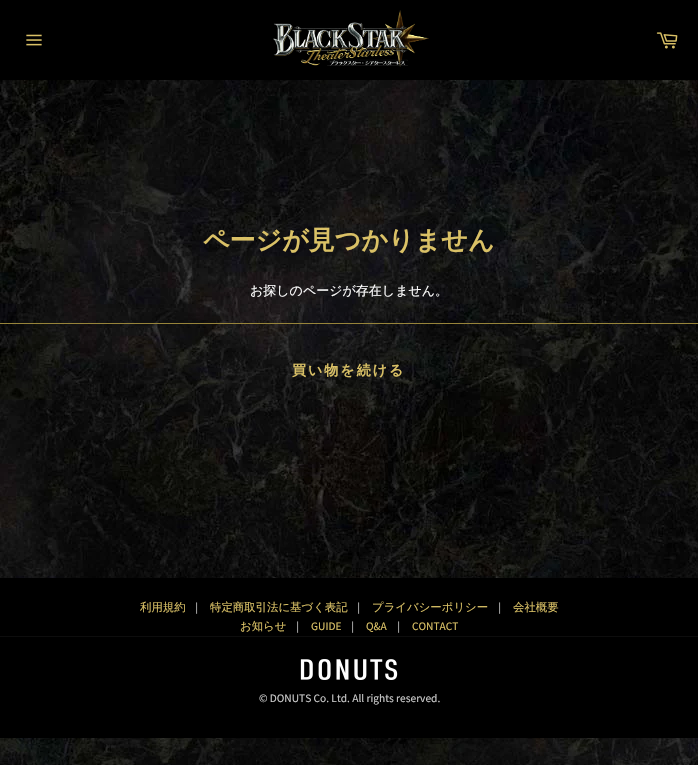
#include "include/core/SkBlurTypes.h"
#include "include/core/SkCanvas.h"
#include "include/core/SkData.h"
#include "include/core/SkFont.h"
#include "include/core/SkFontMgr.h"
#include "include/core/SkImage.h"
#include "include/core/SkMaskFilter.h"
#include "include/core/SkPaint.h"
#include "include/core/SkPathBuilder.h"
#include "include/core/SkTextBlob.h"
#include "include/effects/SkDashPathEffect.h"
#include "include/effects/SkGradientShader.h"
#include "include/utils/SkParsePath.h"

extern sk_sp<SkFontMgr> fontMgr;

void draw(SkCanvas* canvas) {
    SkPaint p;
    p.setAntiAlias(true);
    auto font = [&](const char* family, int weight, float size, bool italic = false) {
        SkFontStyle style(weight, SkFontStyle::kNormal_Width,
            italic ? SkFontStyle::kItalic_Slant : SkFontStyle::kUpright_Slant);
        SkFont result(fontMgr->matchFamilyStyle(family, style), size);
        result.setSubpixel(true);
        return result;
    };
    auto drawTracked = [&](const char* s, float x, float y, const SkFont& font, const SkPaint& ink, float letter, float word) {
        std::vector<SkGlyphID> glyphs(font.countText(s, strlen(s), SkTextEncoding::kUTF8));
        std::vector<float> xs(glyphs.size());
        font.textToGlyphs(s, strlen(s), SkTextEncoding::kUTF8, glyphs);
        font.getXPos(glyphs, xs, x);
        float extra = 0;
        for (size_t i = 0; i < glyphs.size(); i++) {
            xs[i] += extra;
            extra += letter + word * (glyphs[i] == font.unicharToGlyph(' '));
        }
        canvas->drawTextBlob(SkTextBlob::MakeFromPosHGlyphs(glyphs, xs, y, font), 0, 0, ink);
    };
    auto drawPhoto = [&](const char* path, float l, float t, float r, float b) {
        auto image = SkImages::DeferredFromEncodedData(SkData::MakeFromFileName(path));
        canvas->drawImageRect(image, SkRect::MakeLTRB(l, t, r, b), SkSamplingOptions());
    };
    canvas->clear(0xFFFFFFFF);
    drawPhoto("media/1.png", 0, 738, 698, 765);
    drawPhoto("media/2.png", 0, 80, 698, 578);
    p.setColor(0xFF000000);
    canvas->drawRect(SkRect::MakeLTRB(0, 0, 698, 80), p);
    drawPhoto("media/3.png", 26, 34, 42, 46);
    drawPhoto("media/4.png", 273, 10, 429, 67);
    drawPhoto("media/5.png", 656, 32, 678, 49);
    auto font1 = font("WenQuanYi Zen Hei", 700, 26);
    p.setColor(0xFFDAC166);
    canvas->drawString("ページが見つかりません", 203, 249, font1, p);
    auto font2 = font("WenQuanYi Zen Hei", 500, 13);
    p.setColor(0xFFFFFFFF);
    canvas->drawString("お探しのページが存在しません。", 250, 295, font2, p);
    p.setColor(0xFF97843A);
    canvas->drawRect(SkRect::MakeLTRB(0, 323, 698, 324), p);
    auto font3 = font("WenQuanYi Zen Hei", 700, 14);
    p.setColor(0xFFDAC166);
    drawTracked("買い物を続ける", 292, 375, font3, p, 2, 0);
    p.setColor(0xFF000000);
    canvas->drawRect(SkRect::MakeLTRB(0, 578, 698, 738), p);
    auto font4 = font("WenQuanYi Zen Hei", 500, 11.4f);
    p.setColor(0xFFDAC166);
    canvas->drawString("利用規約", 140, 611, font4, p);
    p.setColor(0xFFCCCCCC);
    canvas->drawString("｜", 191, 611, font4, p);
    p.setColor(0xFFDAC166);
    canvas->drawString("特定商取引法に基づく表記", 210, 611, font4, p);
    p.setColor(0xFFCCCCCC);
    canvas->drawString("｜", 353, 611, font4, p);
    p.setColor(0xFFDAC166);
    canvas->drawString("プライバシーポリシー", 372, 611, font4, p);
    p.setColor(0xFFCCCCCC);
    canvas->drawString("｜", 494, 611, font4, p);
    p.setColor(0xFFDAC166);
    canvas->drawString("会社概要", 513, 611, font4, p);
    canvas->drawString("お知らせ", 240, 630, font4, p);
    p.setColor(0xFFCCCCCC);
    canvas->drawString("｜", 292, 630, font4, p);
    auto font5 = font("Source Sans Pro", 400, 11.4f);
    p.setColor(0xFFDAC166);
    canvas->drawString("GUIDE", 311, 630, font5, p);
    p.setColor(0xFFCCCCCC);
    canvas->drawString("｜", 347, 630, font4, p);
    p.setColor(0xFFDAC166);
    canvas->drawString("Q&A", 366, 630, font5, p);
    p.setColor(0xFFCCCCCC);
    canvas->drawString("｜", 393, 630, font4, p);
    p.setColor(0xFFDAC166);
    canvas->drawString("CONTACT", 412, 630, font5, p);
    p.setColor(0xFF0D0D0D);
    canvas->drawRect(SkRect::MakeLTRB(0, 636, 698, 637), p);
    drawPhoto("media/6.png", 300, 659, 398, 680);
    p.setColor(0xFFCCCCCC);
    canvas->drawString("© DONUTS Co. Ltd. All rights reserved.", 259, 702, font5, p);
}
